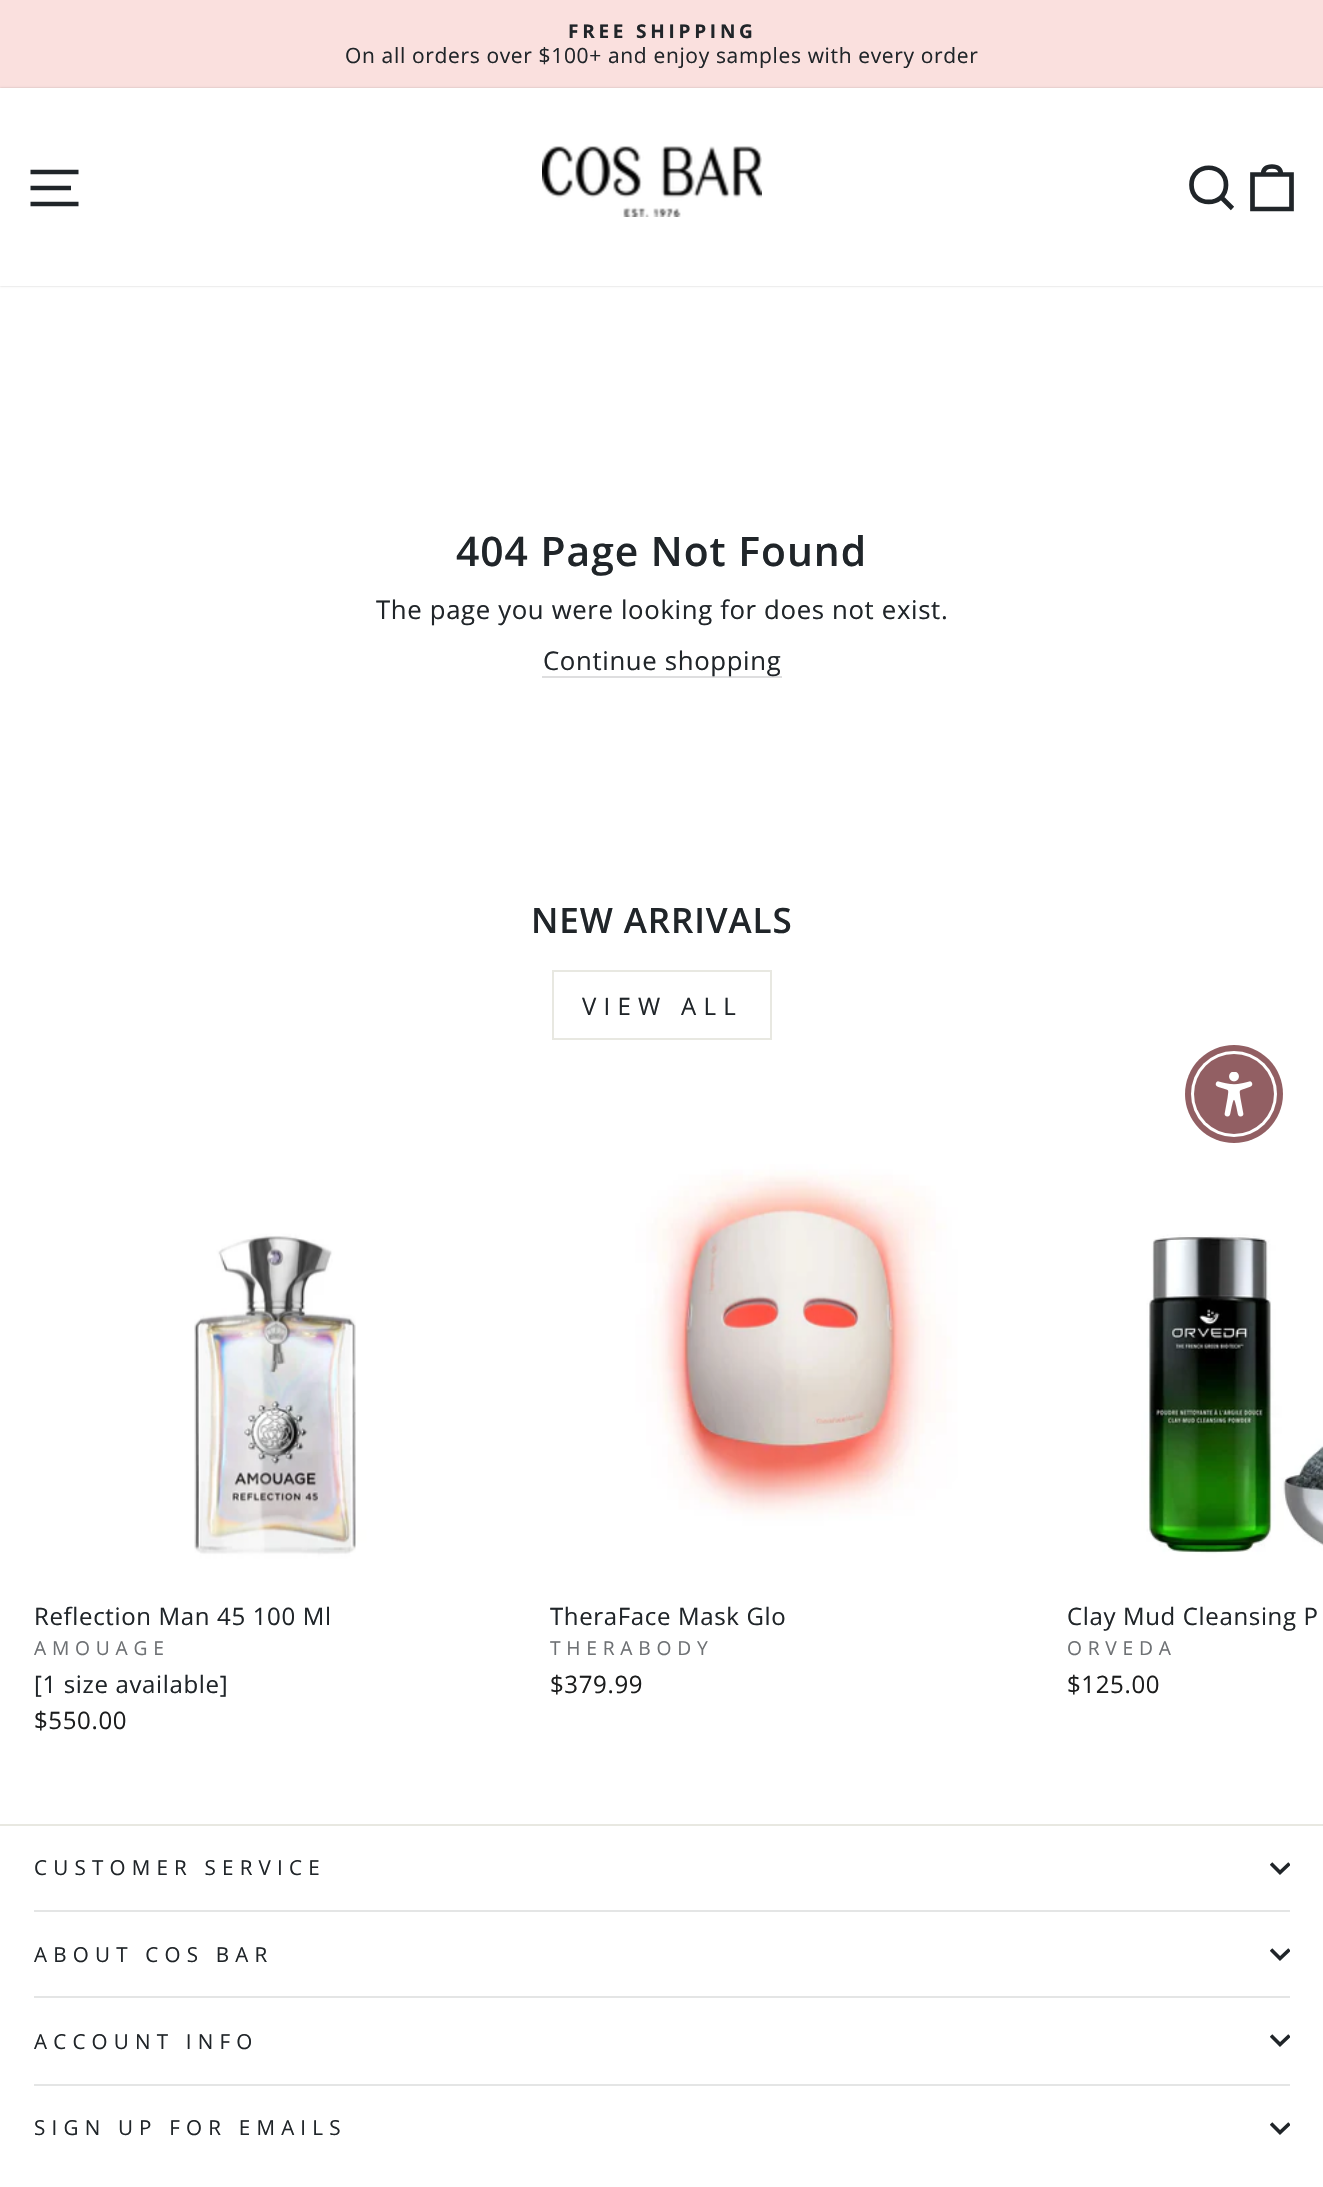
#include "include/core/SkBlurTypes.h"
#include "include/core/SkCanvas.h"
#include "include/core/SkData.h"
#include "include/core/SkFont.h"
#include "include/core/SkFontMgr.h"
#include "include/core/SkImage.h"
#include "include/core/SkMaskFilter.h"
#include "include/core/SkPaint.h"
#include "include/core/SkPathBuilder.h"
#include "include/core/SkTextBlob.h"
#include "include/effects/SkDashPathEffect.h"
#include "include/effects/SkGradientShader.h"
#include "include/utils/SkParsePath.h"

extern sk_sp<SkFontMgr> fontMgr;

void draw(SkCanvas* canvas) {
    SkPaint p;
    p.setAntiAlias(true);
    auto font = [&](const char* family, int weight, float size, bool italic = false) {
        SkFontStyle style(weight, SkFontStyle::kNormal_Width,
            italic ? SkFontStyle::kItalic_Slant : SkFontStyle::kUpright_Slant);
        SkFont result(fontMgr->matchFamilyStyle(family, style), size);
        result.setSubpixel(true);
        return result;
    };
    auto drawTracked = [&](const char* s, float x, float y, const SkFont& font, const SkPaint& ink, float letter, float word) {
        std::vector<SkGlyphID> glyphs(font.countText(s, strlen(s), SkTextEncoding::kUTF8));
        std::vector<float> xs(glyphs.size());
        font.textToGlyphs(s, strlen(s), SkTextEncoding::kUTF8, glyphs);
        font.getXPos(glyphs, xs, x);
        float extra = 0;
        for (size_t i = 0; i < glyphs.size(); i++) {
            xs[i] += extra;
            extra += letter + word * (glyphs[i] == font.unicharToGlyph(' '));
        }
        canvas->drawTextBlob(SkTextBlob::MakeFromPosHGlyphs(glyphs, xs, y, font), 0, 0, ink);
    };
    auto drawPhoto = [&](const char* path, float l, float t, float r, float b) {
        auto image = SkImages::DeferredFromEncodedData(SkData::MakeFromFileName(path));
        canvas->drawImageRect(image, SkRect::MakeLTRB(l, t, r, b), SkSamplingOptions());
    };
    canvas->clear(0xFFFFFFFF);
    p.setColor(0xFFFAE0DE);
    canvas->drawRect(SkRect::MakeLTRB(0, 0, 1323, 88), p);
    auto font1 = font("Open Sans", 700, 19);
    p.setColor(0xFF202529);
    drawTracked("FREE SHIPPING", 568, 38, font1, p, 3.75f, 0);
    auto font2 = font("Open Sans", 400, 21);
    drawTracked("On all orders over $100+ and enjoy samples with every order", 345, 63, font2, p, 0.65f, 0);
    canvas->save();
    canvas->clipPath(SkPathBuilder(SkPathFillType::kEvenOdd).moveTo(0, 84).lineTo(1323, 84).lineTo(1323, 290).lineTo(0, 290).close().moveTo(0, 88).lineTo(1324, 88).lineTo(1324, 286).lineTo(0, 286).close().detach(), true);
    p.setColor(0x33000000);
    p.setMaskFilter(SkMaskFilter::MakeBlur(kNormal_SkBlurStyle, 1));
    canvas->drawRect(SkRect::MakeLTRB(0, 88, 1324, 286), p);
    p.setMaskFilter(nullptr);
    canvas->restore();
    p.setStyle(SkPaint::kStroke_Style);
    p.setStrokeWidth(4.7f);
    p.setColor(0xFF202529);
    canvas->drawPath(SkPathBuilder().moveTo(30.5f, 172).lineTo(78.5f, 172).moveTo(30.5f, 188).lineTo(71, 188).moveTo(30.5f, 204).lineTo(78.5f, 204).detach(), p);
    drawPhoto("media/1.png", 542, 146, 762, 217);
    canvas->drawPath(SkPathBuilder().moveTo(1226, 185).cubicTo(1226, 207.5f, 1191.5f, 207.5f, 1191.5f, 185).cubicTo(1191.5f, 162, 1226, 162, 1226, 185).close().moveTo(1232.5f, 208.5f).lineTo(1221.5f, 197.5f).detach(), p);
    canvas->drawPath(SkPathBuilder().moveTo(1252.5f, 174.5f).lineTo(1291.5f, 174.5f).lineTo(1291.5f, 209).lineTo(1252.5f, 209).close().moveTo(1263, 175).cubicTo(1263, 168, 1267, 166.5f, 1272, 166.5f).cubicTo(1277, 166.5f, 1281, 168, 1281, 175).detach(), p);
    auto font3 = font("Open Sans", 600, 40.75f);
    p.setStyle(SkPaint::kFill_Style);
    drawTracked("404 Page Not Found", 456, 566, font3, p, 1, 0);
    auto font4 = font("Open Sans", 400, 25.75f);
    drawTracked("The page you were looking for does not exist.", 376, 619, font4, p, 0.65f, 0);
    p.setColor(0xFFDEDEDF);
    canvas->drawRect(SkRect::MakeLTRB(542, 676, 782, 678), p);
    p.setColor(0xFF202529);
    drawTracked("Continue shopping", 543, 670, font4, p, 0.65f, 0);
    auto font5 = font("Open Sans", 600, 35);
    drawTracked("NEW ARRIVALS", 531, 933, font5, p, 0.9f, 0);
    p.setStyle(SkPaint::kStroke_Style);
    p.setStrokeWidth(2);
    p.setColor(0xFFE8E8E1);
    canvas->drawRect(SkRect::MakeLTRB(553, 971, 771, 1039), p);
    auto font6 = font("Open Sans", 400, 24);
    p.setStyle(SkPaint::kFill_Style);
    p.setColor(0xFF202529);
    drawTracked("VIEW ALL", 582, 1015, font6, p, 7.25f, 0);
    drawPhoto("media/2.png", 34, 1100, 516, 1584);
    drawTracked("Reflection Man 45 100 Ml", 34, 1625, font6, p, 0.65f, 0);
    auto font7 = font("Open Sans", 400, 19.25f);
    p.setColor(0xFF6E7174);
    drawTracked("AMOUAGE", 34, 1655, font7, p, 5.75f, 0);
    p.setColor(0xFF202529);
    drawTracked("[1 size available]", 34, 1693, font6, p, 0.65f, 0);
    p.setColor(0xFF1C1D1D);
    drawTracked("$550.00", 34, 1729, font6, p, 0.65f, 0);
    drawPhoto("media/3.png", 550, 1100, 1032, 1584);
    p.setColor(0xFF202529);
    drawTracked("TheraFace Mask Glo", 550, 1625, font6, p, 0.65f, 0);
    p.setColor(0xFF6E7174);
    drawTracked("THERABODY", 550, 1655, font7, p, 5.75f, 0);
    p.setColor(0xFF1C1D1D);
    drawTracked("$379.99", 550, 1693, font6, p, 0.65f, 0);
    drawPhoto("media/4.png", 1066, 1100, 1323, 1584);
    p.setColor(0xFF202529);
    drawTracked("Clay Mud Cleansing P", 1067, 1625, font6, p, 0.65f, 0);
    p.setColor(0xFF6E7174);
    drawTracked("ORVEDA", 1067, 1655, font7, p, 5.75f, 0);
    p.setColor(0xFF1C1D1D);
    drawTracked("$125.00", 1067, 1693, font6, p, 0.65f, 0);
    p.setColor(0xFFE8E8E1);
    canvas->drawRect(SkRect::MakeLTRB(0, 1824, 1323, 1826), p);
    auto font8 = font("Open Sans", 400, 20.6f);
    p.setColor(0xFF202529);
    drawTracked("CUSTOMER SERVICE", 34, 1875, font8, p, 6.2f, 0);
    canvas->save();
    canvas->clipRect(SkRect::MakeLTRB(1270, 1858, 1290, 1878));
    p.setStyle(SkPaint::kStroke_Style);
    p.setStrokeWidth(3.6f);
    canvas->drawPath(SkPathBuilder().moveTo(1271, 1863.5f).lineTo(1280, 1872.5f).lineTo(1289.5f, 1863.5f).detach(), p);
    canvas->restore();
    p.setStyle(SkPaint::kFill_Style);
    p.setColor(0xFFE4E5E5);
    canvas->drawRect(SkRect::MakeLTRB(34, 1910, 1290, 1912), p);
    p.setColor(0xFF202529);
    drawTracked("ABOUT COS BAR", 34, 1962, font8, p, 6.2f, 0);
    canvas->save();
    canvas->clipRect(SkRect::MakeLTRB(1270, 1944, 1290, 1964));
    p.setStyle(SkPaint::kStroke_Style);
    canvas->drawPath(SkPathBuilder().moveTo(1271, 1949.5f).lineTo(1280, 1958.5f).lineTo(1289.5f, 1949.5f).detach(), p);
    canvas->restore();
    p.setStyle(SkPaint::kFill_Style);
    p.setColor(0xFFE4E5E5);
    canvas->drawRect(SkRect::MakeLTRB(34, 1996, 1290, 1998), p);
    p.setColor(0xFF202529);
    drawTracked("ACCOUNT INFO", 34, 2049, font8, p, 6.2f, 0);
    canvas->save();
    canvas->clipRect(SkRect::MakeLTRB(1270, 2030, 1290, 2050));
    p.setStyle(SkPaint::kStroke_Style);
    canvas->drawPath(SkPathBuilder().moveTo(1271, 2035.5f).lineTo(1280, 2044.5f).lineTo(1289.5f, 2035.5f).detach(), p);
    canvas->restore();
    p.setStyle(SkPaint::kFill_Style);
    p.setColor(0xFFE4E5E5);
    canvas->drawRect(SkRect::MakeLTRB(34, 2084, 1290, 2086), p);
    p.setColor(0xFF202529);
    drawTracked("SIGN UP FOR EMAILS", 34, 2135, font8, p, 6.2f, 0);
    canvas->save();
    canvas->clipRect(SkRect::MakeLTRB(1270, 2118, 1290, 2138));
    p.setStyle(SkPaint::kStroke_Style);
    canvas->drawPath(SkPathBuilder().moveTo(1271, 2123.5f).lineTo(1280, 2132.5f).lineTo(1289.5f, 2123.5f).detach(), p);
    canvas->restore();
    p.setStyle(SkPaint::kFill_Style);
    p.setColor(0xFF925F63);
    canvas->drawCircle(1234, 1094, 49, p);
    p.setColor(0xFFFFFFFF);
    canvas->drawCircle(1234, 1094, 43, p);
    p.setColor(0xFF925F63);
    canvas->drawCircle(1234, 1094, 40, p);
    drawPhoto("media/5.png", 1215, 1072, 1253, 1117);
}
